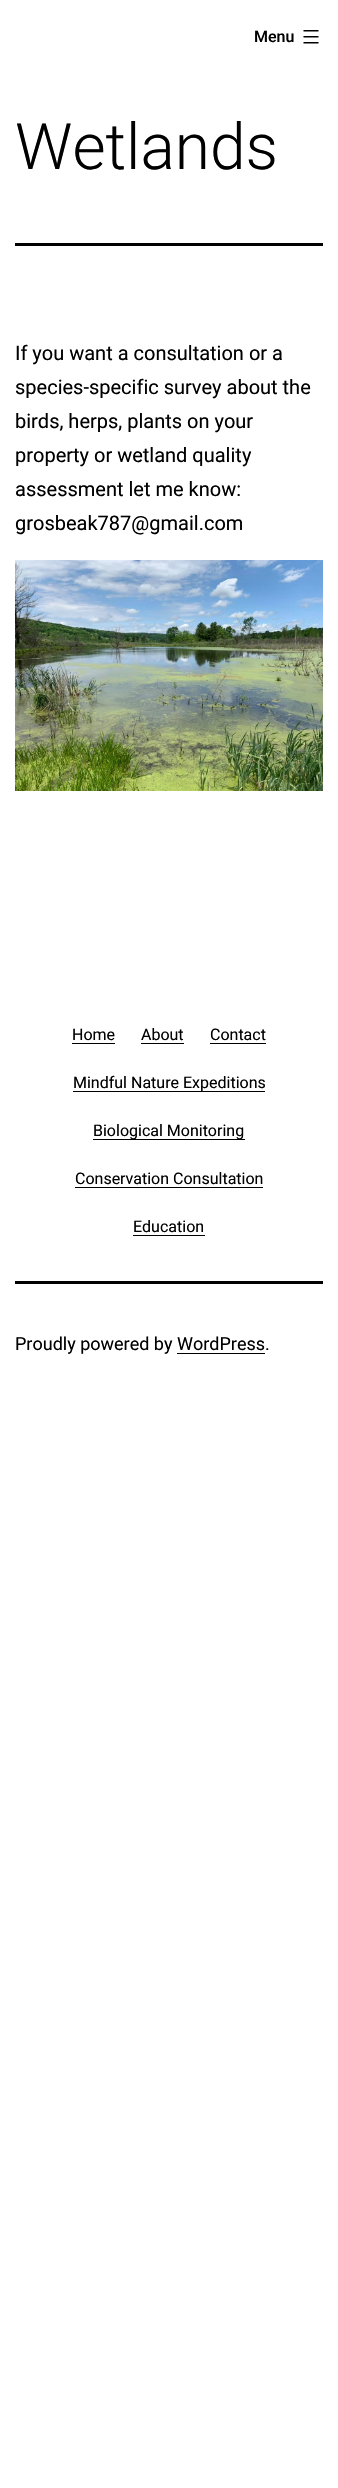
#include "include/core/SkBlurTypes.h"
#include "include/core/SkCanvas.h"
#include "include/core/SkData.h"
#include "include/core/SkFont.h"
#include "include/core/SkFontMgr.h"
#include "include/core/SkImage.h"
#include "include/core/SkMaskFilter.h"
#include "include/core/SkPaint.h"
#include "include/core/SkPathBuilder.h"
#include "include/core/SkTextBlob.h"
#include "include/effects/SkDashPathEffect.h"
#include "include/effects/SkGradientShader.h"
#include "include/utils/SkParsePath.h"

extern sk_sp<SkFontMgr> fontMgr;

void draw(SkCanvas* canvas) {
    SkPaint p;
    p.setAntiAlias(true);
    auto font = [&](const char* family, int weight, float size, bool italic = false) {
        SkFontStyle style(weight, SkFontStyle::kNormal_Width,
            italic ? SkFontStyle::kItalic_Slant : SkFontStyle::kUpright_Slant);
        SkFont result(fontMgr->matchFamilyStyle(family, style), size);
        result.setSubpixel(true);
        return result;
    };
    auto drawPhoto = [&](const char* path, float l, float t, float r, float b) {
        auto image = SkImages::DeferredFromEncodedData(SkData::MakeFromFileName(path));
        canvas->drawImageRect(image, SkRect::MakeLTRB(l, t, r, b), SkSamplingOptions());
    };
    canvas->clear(0xFFFFFFFF);
    auto font1 = font("Roboto", 500, 16);
    p.setColor(0xFF000000);
    canvas->drawString("Menu", 254, 42, font1, p);
    drawPhoto("media/1.png", 303, 30, 319, 44);
    canvas->drawRect(SkRect::MakeLTRB(15, 243, 323, 246), p);
    auto font2 = font("Roboto", 300, 64);
    canvas->drawString("Wetlands", 15, 169, font2, p);
    auto font3 = font("Roboto", 400, 20);
    {
        const struct { const char* s; float x, y; } items[] = {
            {"If you want a consultation or a", 15, 360},
            {"species-specific survey about the", 15, 394},
            {"birds, herps, plants on your", 15, 428},
            {"property or wetland quality", 15, 462},
            {"assessment let me know:", 15, 496},
            {"grosbeak787@gmail.com", 15, 530},
        };
        for (auto [s, x, y] : items) {
            canvas->drawString(s, x, y, font3, p);
        }
    }
    drawPhoto("media/2.png", 15, 560, 323, 791);
    auto font4 = font("Roboto", 400, 16);
    canvas->drawString("Home", 72, 1040, font4, p);
    canvas->drawRect(SkRect::MakeLTRB(72, 1043, 115, 1044), p);
    canvas->drawString("About", 141, 1040, font4, p);
    canvas->drawRect(SkRect::MakeLTRB(141, 1043, 184, 1044), p);
    canvas->drawString("Contact", 210, 1040, font4, p);
    canvas->drawRect(SkRect::MakeLTRB(210, 1043, 266, 1044), p);
    canvas->drawRect(SkRect::MakeLTRB(73, 1091, 265, 1092), p);
    canvas->drawString("Mindful Nature Expeditions", 73, 1088, font4, p);
    canvas->drawRect(SkRect::MakeLTRB(93, 1139, 245, 1140), p);
    canvas->drawString("Biological Monitoring", 93, 1136, font4, p);
    canvas->drawString("Conservation Consultation", 75, 1184, font4, p);
    canvas->drawRect(SkRect::MakeLTRB(75, 1187, 263, 1188), p);
    canvas->drawString("Education", 133, 1232, font4, p);
    canvas->drawRect(SkRect::MakeLTRB(133, 1235, 205, 1236), p);
    canvas->drawRect(SkRect::MakeLTRB(15, 1281, 323, 1284), p);
    auto font5 = font("Roboto", 400, 18);
    canvas->drawString("Proudly powered by WordPress.", 15, 1350, font5, p);
    canvas->drawRect(SkRect::MakeLTRB(177, 1353, 265, 1354), p);
}
